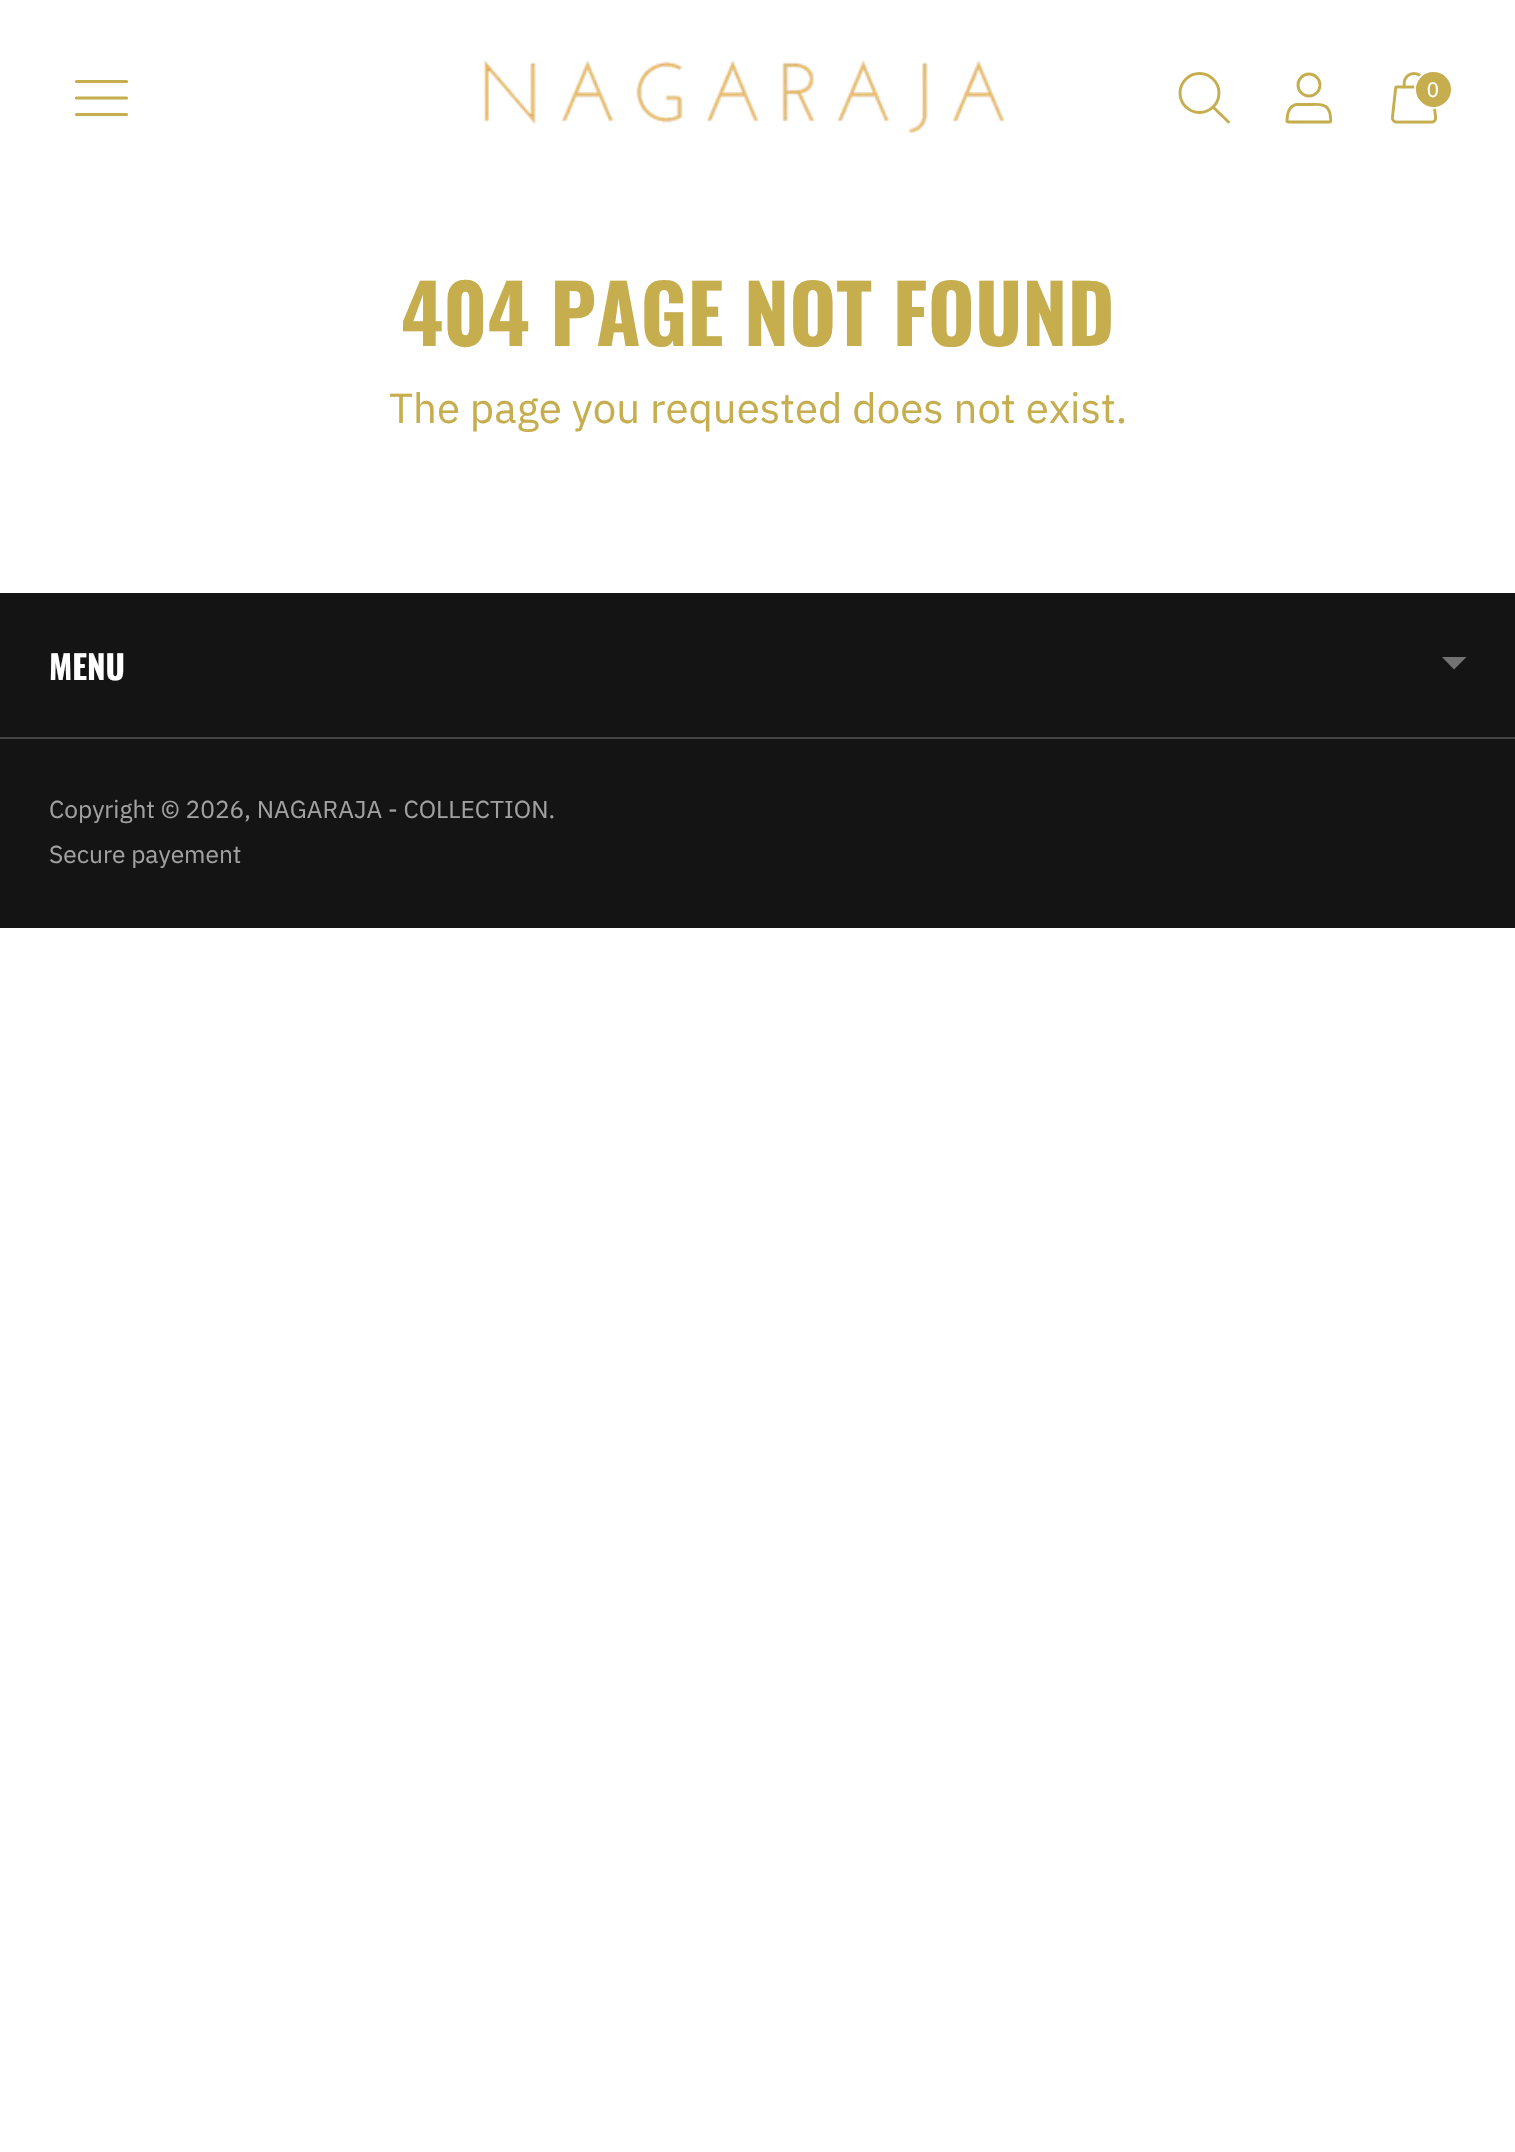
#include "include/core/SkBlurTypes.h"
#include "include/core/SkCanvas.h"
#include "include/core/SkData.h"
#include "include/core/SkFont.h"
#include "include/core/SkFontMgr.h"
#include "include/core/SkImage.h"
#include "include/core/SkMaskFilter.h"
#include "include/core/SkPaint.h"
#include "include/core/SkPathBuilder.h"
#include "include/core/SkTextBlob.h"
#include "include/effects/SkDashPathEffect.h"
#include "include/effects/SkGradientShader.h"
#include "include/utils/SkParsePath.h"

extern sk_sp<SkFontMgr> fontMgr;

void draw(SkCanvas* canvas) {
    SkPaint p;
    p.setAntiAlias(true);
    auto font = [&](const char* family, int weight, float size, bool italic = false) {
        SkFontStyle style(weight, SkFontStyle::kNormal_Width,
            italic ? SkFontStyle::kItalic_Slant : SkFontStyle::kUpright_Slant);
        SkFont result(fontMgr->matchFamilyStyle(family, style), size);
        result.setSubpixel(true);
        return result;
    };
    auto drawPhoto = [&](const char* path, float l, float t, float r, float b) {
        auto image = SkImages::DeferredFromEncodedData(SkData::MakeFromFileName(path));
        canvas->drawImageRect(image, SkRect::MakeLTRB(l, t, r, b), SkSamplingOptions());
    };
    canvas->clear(0xFFFFFFFF);
    p.setStyle(SkPaint::kStroke_Style);
    p.setStrokeWidth(3.2f);
    p.setStrokeCap(SkPaint::kRound_Cap);
    p.setStrokeJoin(SkPaint::kRound_Join);
    p.setColor(0xFFC6AD4D);
    canvas->drawPath(SkPathBuilder().moveTo(76.5f, 98).lineTo(126.5f, 98).moveTo(76.5f, 81.5f).lineTo(126.5f, 81.5f).moveTo(76.5f, 114.5f).lineTo(126.5f, 114.5f).detach(), p);
    drawPhoto("media/1.png", 483, 60, 1005, 133);
    p.setStrokeWidth(2.9f);
    p.setStrokeCap(SkPaint::kButt_Cap);
    p.setStrokeJoin(SkPaint::kMiter_Join);
    canvas->drawCircle(1199.5f, 93, 19.5f, p);
    p.setStrokeCap(SkPaint::kRound_Cap);
    p.setStrokeJoin(SkPaint::kRound_Join);
    canvas->drawPath(SkPathBuilder().moveTo(1214, 108).lineTo(1228.5f, 122).detach(), p);
    p.setStrokeCap(SkPaint::kButt_Cap);
    p.setStrokeJoin(SkPaint::kMiter_Join);
    canvas->drawCircle(1309, 85, 11, p);
    p.setStrokeCap(SkPaint::kRound_Cap);
    p.setStrokeJoin(SkPaint::kRound_Join);
    canvas->drawPath(SkPathBuilder().moveTo(1330, 122).cubicTo(1331.5f, 122, 1330, 114.5f, 1330, 113.5f).cubicTo(1327.5f, 102.5f, 1317.5f, 104.5f, 1309, 104.5f).lineTo(1296.5f, 104.5f).cubicTo(1289, 106, 1287, 114.5f, 1287, 121.5f).lineTo(1288, 122).close().detach(), p);
    drawPhoto("media/2.png", 1391, 72, 1437, 124);
    p.setStrokeWidth(2);
    p.setStrokeCap(SkPaint::kButt_Cap);
    p.setStrokeJoin(SkPaint::kMiter_Join);
    p.setColor(0xFFFFFFFF);
    canvas->drawCircle(1433.5f, 89.5f, 18.5f, p);
    p.setStyle(SkPaint::kFill_Style);
    p.setColor(0xFFC6AD4D);
    canvas->drawCircle(1433.5f, 89.5f, 17.5f, p);
    auto font1 = font("Liberation Sans", 400, 21);
    p.setColor(0xFFFFFFFF);
    canvas->drawString("0", 1427, 97, font1, p);
    auto font2 = font("Oswald", 700, 80.5f);
    p.setColor(0xFFC6AD4D);
    canvas->drawString("404 PAGE NOT FOUND", 401, 346, font2, p);
    auto font3 = font("IBM Plex Sans", 400, 42);
    canvas->drawString("The page you requested does not exist.", 389, 423, font3, p);
    p.setColor(0xFF141415);
    canvas->drawRect(SkRect::MakeLTRB(0, 593, 1515, 928), p);
    p.setColor(0xFF434344);
    canvas->drawRect(SkRect::MakeLTRB(0, 737, 1515, 739), p);
    auto font4 = font("Oswald", 700, 33);
    p.setColor(0xFFFFFFFF);
    canvas->drawString("MENU", 49, 680, font4, p);
    p.setColor(0xFF727273);
    canvas->drawPath(SkPathBuilder().moveTo(1442, 657).lineTo(1454, 669.5f).lineTo(1466.5f, 657).close().detach(), p);
    auto font5 = font("IBM Plex Sans", 400, 24.5f);
    p.setColor(0xFFA1A1A1);
    canvas->drawString("Copyright © 2026, NAGARAJA - COLLECTION.", 49, 818, font5, p);
    canvas->drawString("Secure payement", 49, 863, font5, p);
}
